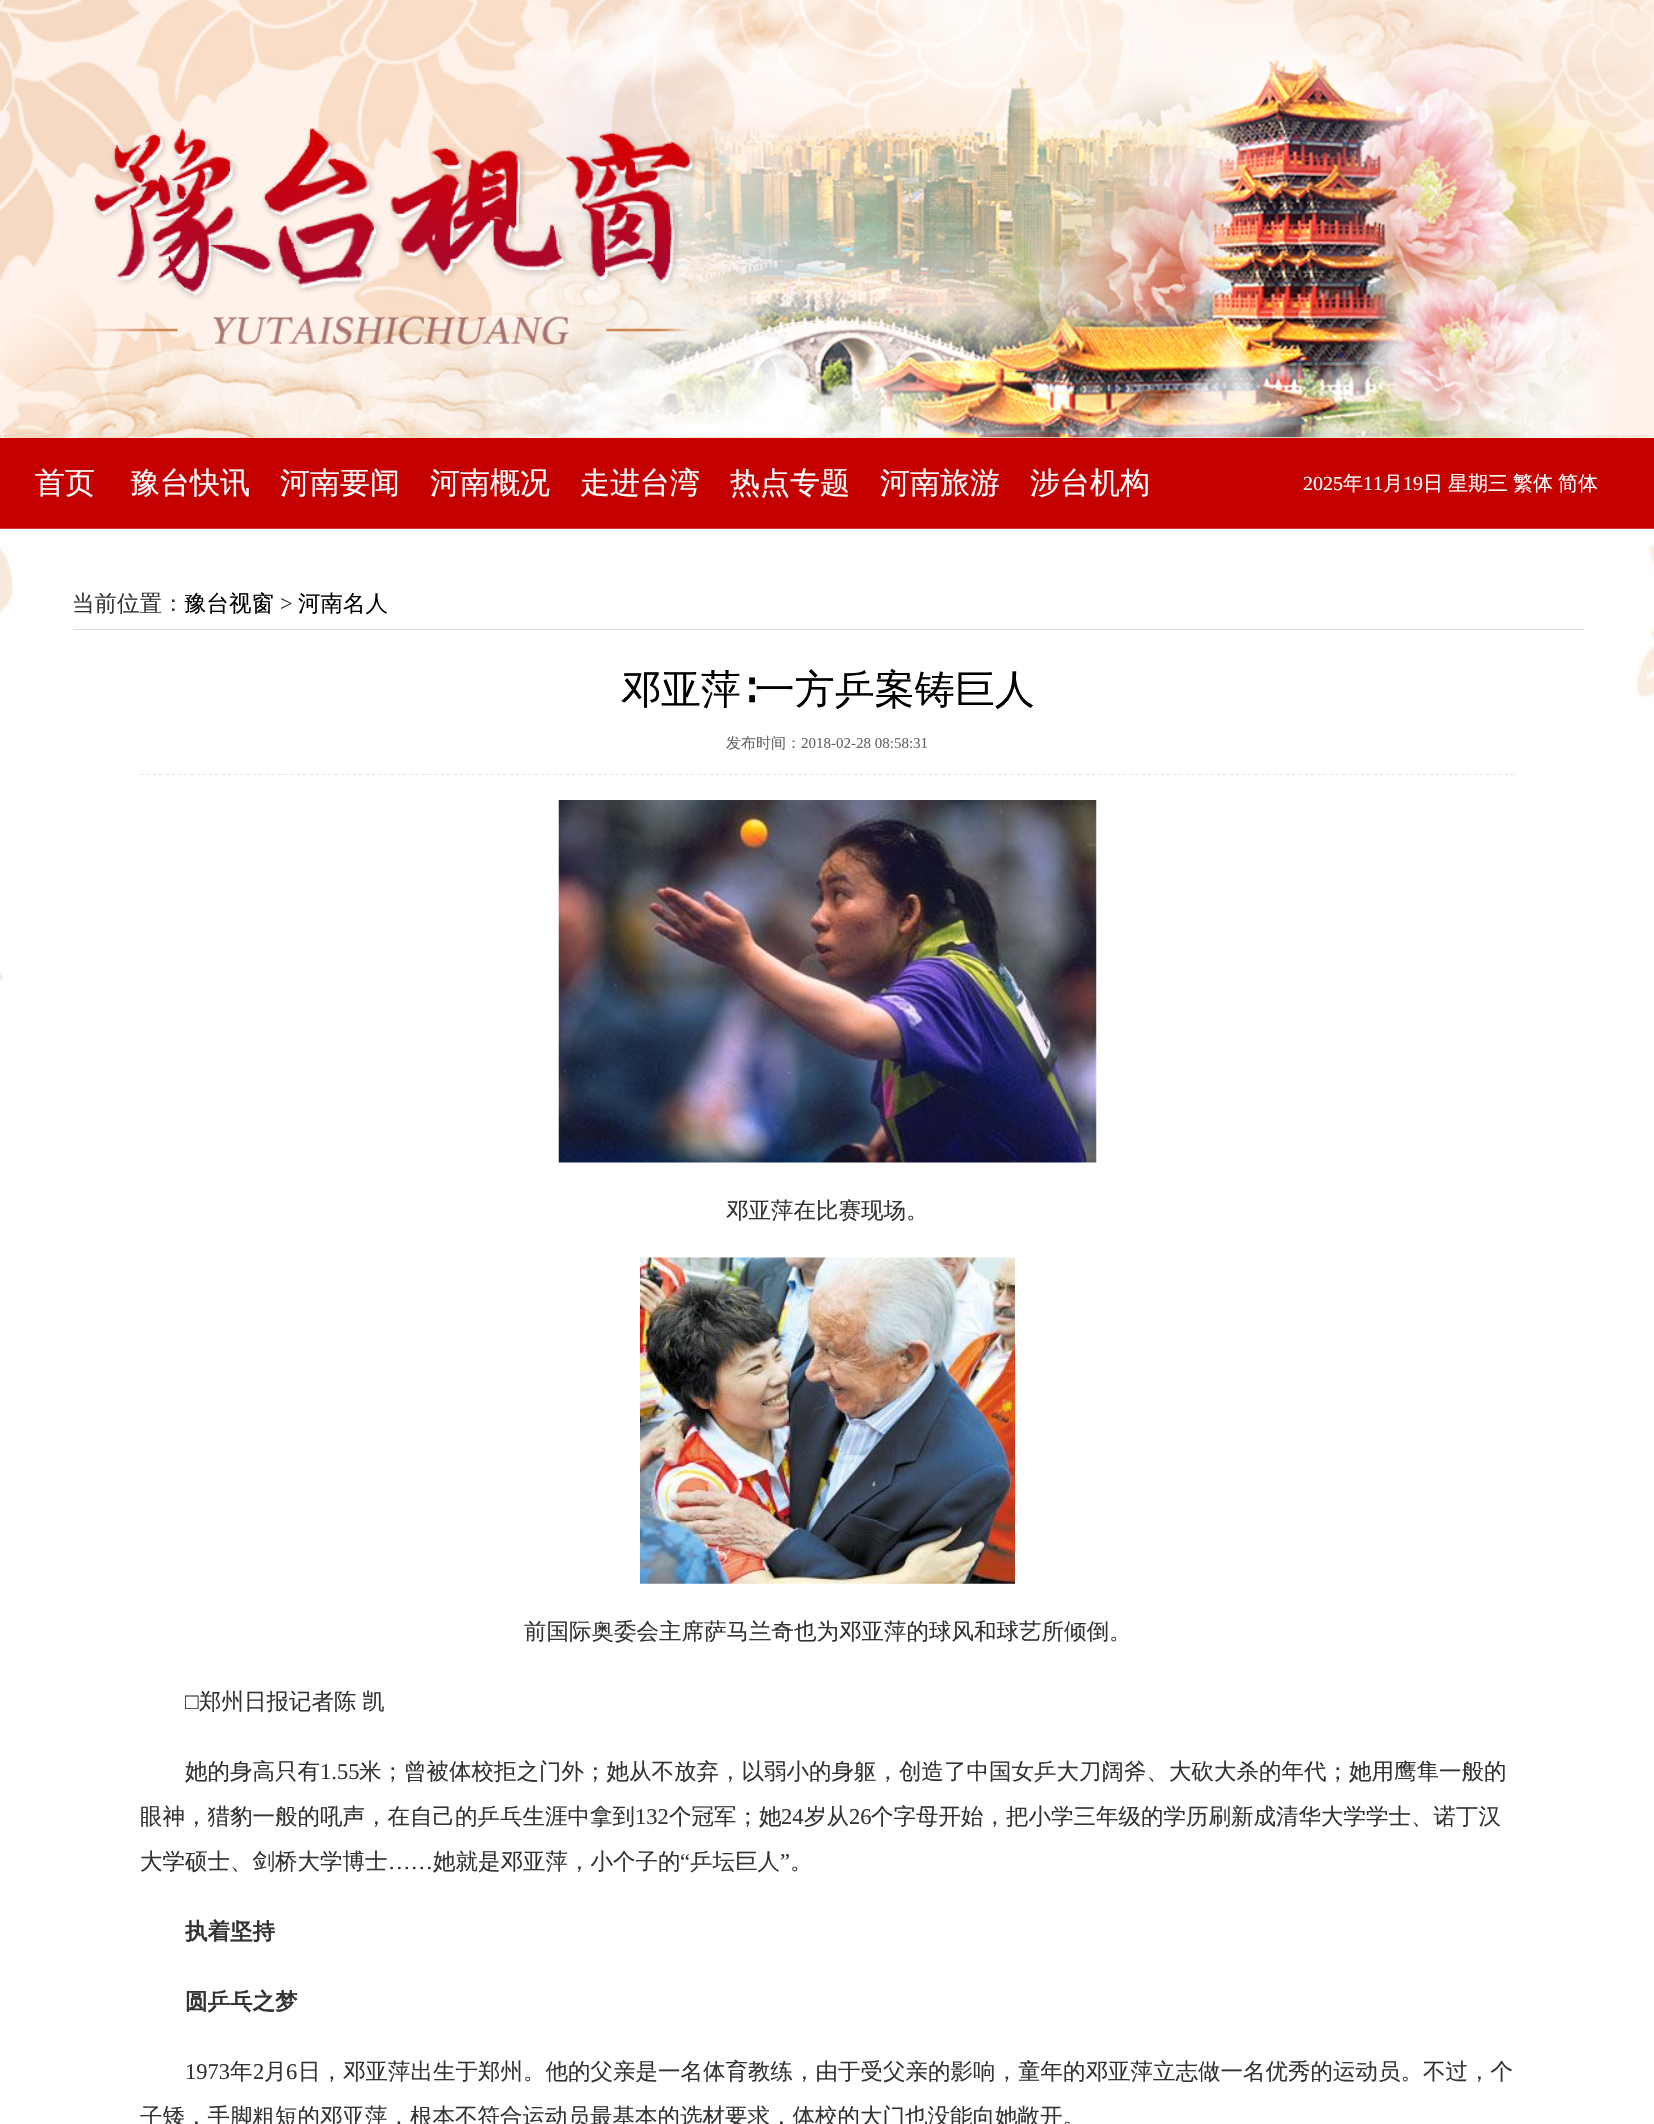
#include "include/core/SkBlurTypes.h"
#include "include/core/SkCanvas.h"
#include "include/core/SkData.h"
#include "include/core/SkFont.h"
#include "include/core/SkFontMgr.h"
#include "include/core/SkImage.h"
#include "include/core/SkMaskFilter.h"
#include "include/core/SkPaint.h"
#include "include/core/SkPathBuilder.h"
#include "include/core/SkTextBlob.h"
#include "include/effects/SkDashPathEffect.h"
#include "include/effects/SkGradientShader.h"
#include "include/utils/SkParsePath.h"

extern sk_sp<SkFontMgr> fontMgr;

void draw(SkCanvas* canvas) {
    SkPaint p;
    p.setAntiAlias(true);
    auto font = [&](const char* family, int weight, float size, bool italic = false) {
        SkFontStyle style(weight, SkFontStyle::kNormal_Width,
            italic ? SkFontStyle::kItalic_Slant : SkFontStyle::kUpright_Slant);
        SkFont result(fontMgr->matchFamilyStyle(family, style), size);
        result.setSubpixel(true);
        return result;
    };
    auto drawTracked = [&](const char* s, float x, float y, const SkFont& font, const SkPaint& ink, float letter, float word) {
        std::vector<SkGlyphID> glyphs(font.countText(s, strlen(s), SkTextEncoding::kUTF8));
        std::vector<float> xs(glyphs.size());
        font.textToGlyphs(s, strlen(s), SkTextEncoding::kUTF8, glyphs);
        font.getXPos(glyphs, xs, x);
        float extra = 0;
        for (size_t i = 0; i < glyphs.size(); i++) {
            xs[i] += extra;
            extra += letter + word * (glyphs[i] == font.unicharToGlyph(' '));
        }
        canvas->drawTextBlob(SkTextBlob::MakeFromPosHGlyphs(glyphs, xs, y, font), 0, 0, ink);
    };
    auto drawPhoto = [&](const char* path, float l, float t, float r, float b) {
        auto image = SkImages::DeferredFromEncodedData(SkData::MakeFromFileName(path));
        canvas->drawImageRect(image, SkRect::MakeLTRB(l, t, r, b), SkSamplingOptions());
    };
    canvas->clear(0xFFFFFFFF);
    drawPhoto("media/1.png", 0, 0, 1654, 438);
    drawPhoto("media/2.png", 15, 0, 1640, 438);
    drawPhoto("media/3.png", 92, 127, 698, 345);
    p.setColor(0xFFC40001);
    canvas->drawRect(SkRect::MakeLTRB(0, 438, 1654, 529), p);
    auto font1 = font("WenQuanYi Zen Hei", 500, 30);
    p.setColor(0xFFFFFFFF);
    {
        const struct { const char* s; float x, y; } items[] = {
            {"首页", 35, 493},
            {"豫台快讯", 130, 493},
            {"河南要闻", 280, 493},
            {"河南概况", 430, 493},
            {"走进台湾", 580, 493},
            {"热点专题", 730, 493},
            {"河南旅游", 880, 493},
            {"涉台机构", 1030, 493},
        };
        for (auto [s, x, y] : items) {
            canvas->drawString(s, x, y, font1, p);
        }
    }
    auto font2 = font("Liberation Serif", 400, 20);
    canvas->drawString("2025", 1303, 490, font2, p);
    auto font3 = font("WenQuanYi Zen Hei", 500, 20);
    canvas->drawString("年", 1343, 490, font3, p);
    canvas->drawString("11", 1363, 490, font2, p);
    canvas->drawString("月", 1383, 490, font3, p);
    canvas->drawString("19", 1403, 490, font2, p);
    {
        const struct { const char* s; float x, y; } items[] = {
            {"日", 1423, 490},
            {"星期三", 1448, 490},
            {"繁体", 1513, 490},
            {"简体", 1558, 490},
        };
        for (auto [s, x, y] : items) {
            canvas->drawString(s, x, y, font3, p);
        }
    }
    drawPhoto("media/4.png", 0, 528, 1654, 982);
    p.setColor(0xFFDDDDDD);
    canvas->drawRect(SkRect::MakeLTRB(73, 629, 1584, 630), p);
    auto font4 = font("WenQuanYi Zen Hei", 500, 22.5f);
    p.setColor(0xFF333333);
    canvas->drawString("当前位置：", 72, 611, font4, p);
    p.setColor(0xFF000000);
    canvas->drawString("豫台视窗", 184, 611, font4, p);
    auto font5 = font("Liberation Serif", 400, 22.5f);
    p.setColor(0xFF333333);
    canvas->drawString(">", 280, 611, font5, p);
    p.setColor(0xFF000000);
    canvas->drawString("河南名人", 298, 611, font4, p);
    auto font6 = font("WenQuanYi Zen Hei", 500, 40);
    canvas->drawString("邓亚萍∶一方乒案铸巨人", 621, 703, font6, p);
    p.setStyle(SkPaint::kStroke_Style);
    p.setStrokeWidth(1.2f);
    p.setColor(0xFFE5E5E5);
    p.setPathEffect(SkDashPathEffect::Make({{3.75f, 2.51f}}, 0));
    canvas->drawPath(SkPathBuilder().moveTo(140, 774.5f).lineTo(1515, 774.5f).detach(), p);
    p.setPathEffect(nullptr);
    auto font7 = font("WenQuanYi Zen Hei", 500, 15);
    p.setStyle(SkPaint::kFill_Style);
    p.setColor(0xFF666666);
    canvas->drawString("发布时间：", 726, 748, font7, p);
    auto font8 = font("Liberation Serif", 400, 15);
    canvas->drawString("2018-02-28 08:58:31", 801, 748, font8, p);
    drawPhoto("media/5.png", 558, 800, 1097, 1163);
    p.setColor(0xFF333333);
    canvas->drawString("邓亚萍在比赛现场。", 726, 1218, font4, p);
    drawPhoto("media/6.png", 640, 1257, 1015, 1584);
    canvas->drawString("前国际奥委会主席萨马兰奇也为邓亚萍的球风和球艺所倾倒。", 524, 1639, font4, p);
    canvas->drawString("□", 185, 1709, font5, p);
    drawTracked("郑州日报记者陈 凯", 199, 1709, font4, p, 0, -1);
    canvas->drawString("她的身高只有", 185, 1779, font4, p);
    canvas->drawString("1.55", 320, 1779, font5, p);
    canvas->drawString("米；曾被体校拒之门外；她从不放弃，以弱小的身躯，创造了中国女乒大刀阔斧、大砍大杀的年代；她用鹰隼一般的", 359, 1779, font4, p);
    canvas->drawString("眼神，猎豹一般的吼声，在自己的乒乓生涯中拿到", 140, 1824, font4, p);
    canvas->drawString("132", 635, 1824, font5, p);
    canvas->drawString("个冠军；她", 669, 1824, font4, p);
    canvas->drawString("24", 781, 1824, font5, p);
    canvas->drawString("岁从", 804, 1824, font4, p);
    canvas->drawString("26", 849, 1824, font5, p);
    {
        const struct { const char* s; float x, y; } items[] = {
            {"个字母开始，把小学三年级的学历刷新成清华大学学士、诺丁汉", 871, 1824},
            {"大学硕士、剑桥大学博士", 140, 1869},
            {"她就是邓亚萍，小个子的", 433, 1869},
        };
        for (auto [s, x, y] : items) {
            canvas->drawString(s, x, y, font4, p);
        }
    }
    canvas->drawString("“", 680, 1869, font5, p);
    canvas->drawString("乒坛巨人", 690, 1869, font4, p);
    canvas->drawString("”", 780, 1869, font5, p);
    canvas->drawString("……", 388, 1869, font5, p);
    canvas->drawString("。", 790, 1869, font4, p);
    auto font9 = font("WenQuanYi Zen Hei", 700, 22.5f);
    canvas->drawString("执着坚持", 185, 1939, font9, p);
    canvas->drawString("圆乒乓之梦", 185, 2009, font9, p);
    canvas->drawString("1973", 185, 2079, font5, p);
    canvas->drawString("年", 230, 2079, font4, p);
    canvas->drawString("2", 253, 2079, font5, p);
    canvas->drawString("月", 264, 2079, font4, p);
    canvas->drawString("6", 286, 2079, font5, p);
    canvas->drawString("日，邓亚萍出生于郑州。他的父亲是一名体育教练，由于受父亲的影响，童年的邓亚萍立志做一名优秀的运动员。不过，个", 298, 2079, font4, p);
    canvas->drawString("子矮，手脚粗短的邓亚萍，根本不符合运动员最基本的选材要求，体校的大门也没能向她敞开。", 140, 2124, font4, p);
}
